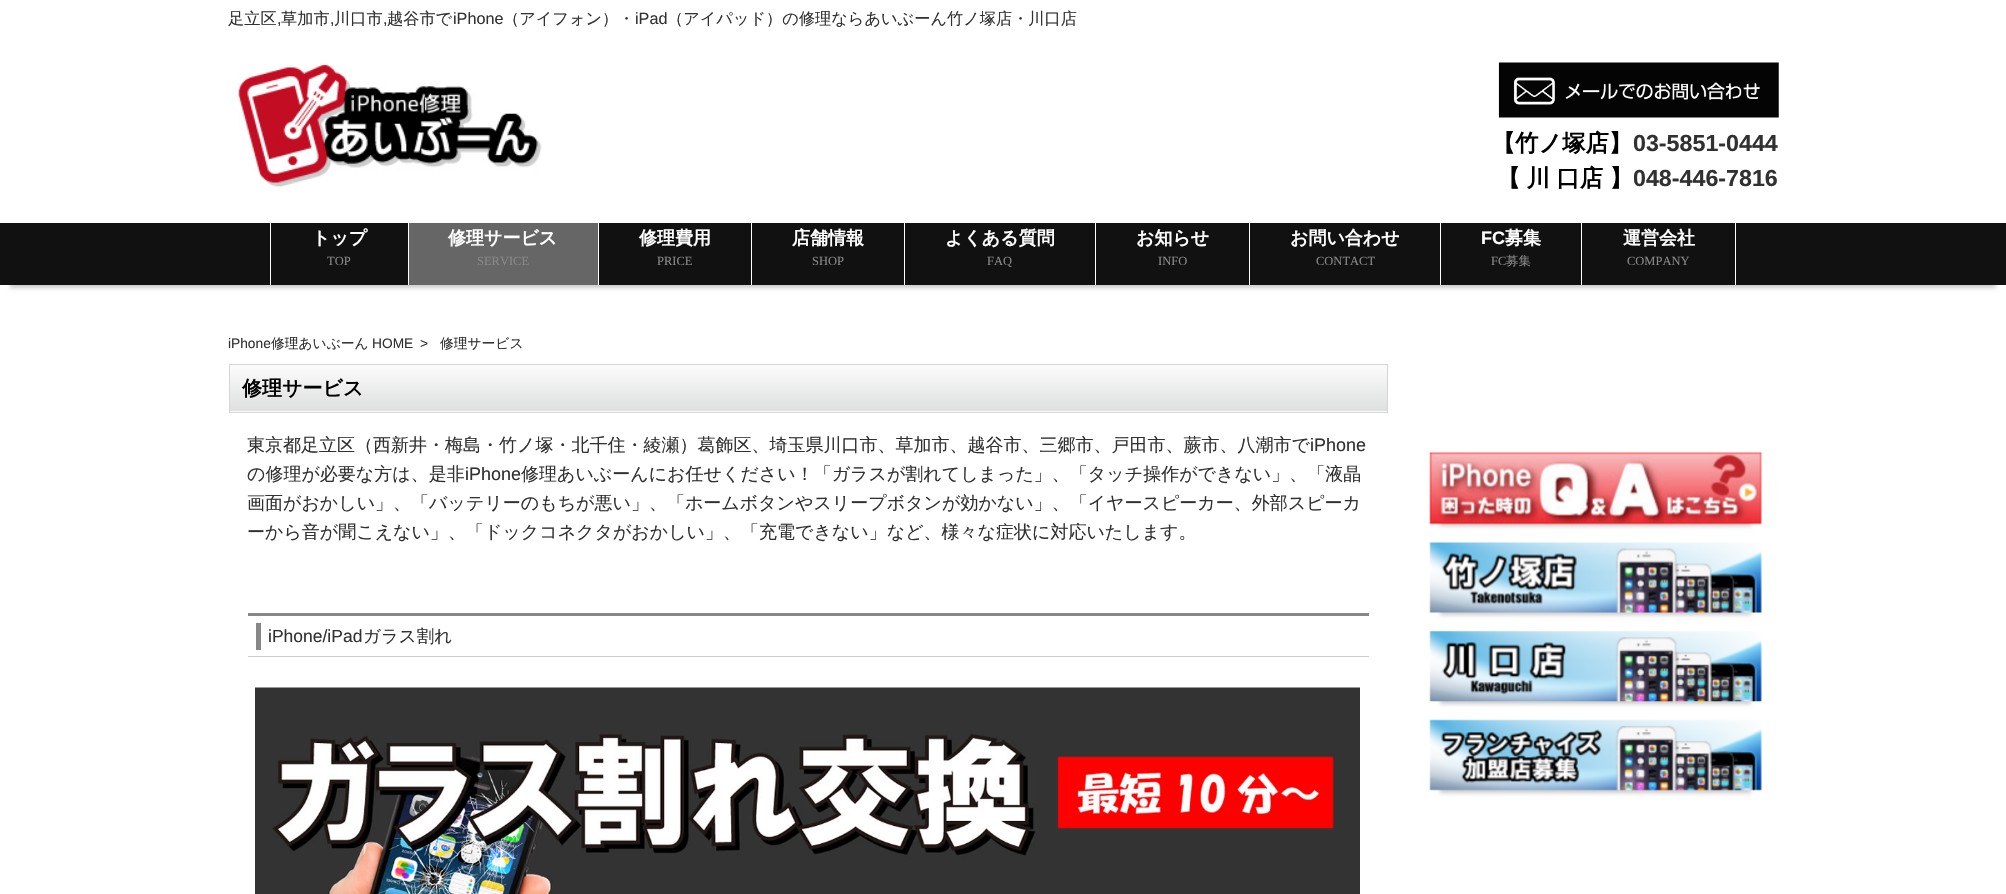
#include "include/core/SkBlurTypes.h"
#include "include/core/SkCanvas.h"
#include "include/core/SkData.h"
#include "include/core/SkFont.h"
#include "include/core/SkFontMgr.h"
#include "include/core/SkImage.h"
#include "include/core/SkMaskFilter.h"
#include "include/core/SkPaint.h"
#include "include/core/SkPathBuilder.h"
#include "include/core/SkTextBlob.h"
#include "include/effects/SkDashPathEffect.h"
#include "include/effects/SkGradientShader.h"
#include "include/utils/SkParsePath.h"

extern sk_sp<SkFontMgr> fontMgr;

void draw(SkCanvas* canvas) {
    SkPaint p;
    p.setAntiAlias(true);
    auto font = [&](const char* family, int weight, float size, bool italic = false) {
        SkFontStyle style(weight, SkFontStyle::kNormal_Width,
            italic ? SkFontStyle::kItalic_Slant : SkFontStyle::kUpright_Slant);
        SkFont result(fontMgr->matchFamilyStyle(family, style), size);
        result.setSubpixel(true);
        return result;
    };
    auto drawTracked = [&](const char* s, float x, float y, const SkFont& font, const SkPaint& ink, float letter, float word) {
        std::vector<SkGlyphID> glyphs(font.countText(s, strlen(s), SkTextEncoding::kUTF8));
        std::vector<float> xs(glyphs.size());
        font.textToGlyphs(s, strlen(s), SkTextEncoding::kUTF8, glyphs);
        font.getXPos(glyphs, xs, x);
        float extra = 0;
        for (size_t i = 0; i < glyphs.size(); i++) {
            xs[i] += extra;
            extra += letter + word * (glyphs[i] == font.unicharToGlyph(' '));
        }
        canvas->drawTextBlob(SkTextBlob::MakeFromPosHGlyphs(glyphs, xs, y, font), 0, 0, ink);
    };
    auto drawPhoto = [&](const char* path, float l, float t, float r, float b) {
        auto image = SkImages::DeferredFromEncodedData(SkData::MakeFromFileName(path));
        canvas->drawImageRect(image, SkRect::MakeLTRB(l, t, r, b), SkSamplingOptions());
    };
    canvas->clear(0xFFFFFFFF);
    auto font1 = font("WenQuanYi Zen Hei", 500, 16.2f);
    p.setColor(0xFF313131);
    canvas->drawString("足立区", 228, 24, font1, p);
    auto font2 = font("Liberation Sans", 400, 16.2f);
    canvas->drawString(",", 277, 24, font2, p);
    canvas->drawString("草加市", 281, 24, font1, p);
    canvas->drawString(",", 330, 24, font2, p);
    canvas->drawString("川口市", 334, 24, font1, p);
    canvas->drawString(",", 383, 24, font2, p);
    canvas->drawString("越谷市で", 387, 24, font1, p);
    canvas->drawString("iPhone", 453, 24, font2, p);
    canvas->drawString("（アイフォン）・", 503, 24, font1, p);
    canvas->drawString("iPad", 635, 24, font2, p);
    canvas->drawString("（アイパッド）の修理ならあいぶーん竹ノ塚店・川口店", 667, 24, font1, p);
    drawPhoto("media/1.png", 238, 64, 542, 187);
    drawPhoto("media/2.png", 1498, 62, 1779, 118);
    auto font3 = font("WenQuanYi Zen Hei", 700, 23.25f);
    p.setColor(0xFF000000);
    canvas->drawString("【竹ノ塚店】", 1492, 151, font3, p);
    auto font4 = font("Liberation Sans", 700, 23.25f);
    p.setColor(0xFF313131);
    canvas->drawString("03-5851-0444", 1633, 151, font4, p);
    p.setColor(0xFF000000);
    drawTracked("【 川 口店 】", 1497, 186, font3, p, 0, -0.5f);
    p.setColor(0xFF313131);
    canvas->drawString("048-446-7816", 1633, 186, font4, p);
    p.setColor(0xFFCCCCCC);
    p.setMaskFilter(SkMaskFilter::MakeBlur(kNormal_SkBlurStyle, 2));
    canvas->drawRect(SkRect::MakeLTRB(10, 245, 1996, 288), p);
    p.setMaskFilter(nullptr);
    {
        const struct { float l, t, r, b; SkColor color; } items[] = {
            {0, 223, 2006, 285, 0xFF111111},
            {270, 223, 271, 285, 0xFFFFFFFF},
            {408, 223, 409, 285, 0xFFFFFFFF},
        };
        for (auto [l, t, r, b, color] : items) {
            p.setColor(color);
            canvas->drawRect(SkRect::MakeLTRB(l, t, r, b), p);
        }
    }
    auto font5 = font("WenQuanYi Zen Hei", 700, 18);
    canvas->drawString("トップ", 312, 244, font5, p);
    auto font6 = font("Liberation Serif", 400, 12.5f);
    p.setColor(0xFF888888);
    canvas->drawString("TOP", 327, 265, font6, p);
    p.setColor(0xFFFFFFFF);
    canvas->drawRect(SkRect::MakeLTRB(598, 223, 599, 285), p);
    p.setColor(0xFF666666);
    canvas->drawRect(SkRect::MakeLTRB(409, 223, 598, 285), p);
    p.setColor(0xFFFFFFFF);
    canvas->drawString("修理サービス", 448, 244, font5, p);
    p.setColor(0xFF888888);
    canvas->drawString("SERVICE", 477, 265, font6, p);
    p.setColor(0xFFFFFFFF);
    canvas->drawRect(SkRect::MakeLTRB(751, 223, 752, 285), p);
    canvas->drawString("修理費用", 639, 244, font5, p);
    p.setColor(0xFF888888);
    canvas->drawString("PRICE", 657, 265, font6, p);
    p.setColor(0xFFFFFFFF);
    canvas->drawRect(SkRect::MakeLTRB(904, 223, 905, 285), p);
    canvas->drawString("店舗情報", 792, 244, font5, p);
    p.setColor(0xFF888888);
    canvas->drawString("SHOP", 812, 265, font6, p);
    p.setColor(0xFFFFFFFF);
    canvas->drawRect(SkRect::MakeLTRB(1095, 223, 1096, 285), p);
    canvas->drawString("よくある質問", 945, 244, font5, p);
    p.setColor(0xFF888888);
    canvas->drawString("FAQ", 987, 265, font6, p);
    p.setColor(0xFFFFFFFF);
    canvas->drawRect(SkRect::MakeLTRB(1249, 223, 1250, 285), p);
    canvas->drawString("お知らせ", 1136, 244, font5, p);
    p.setColor(0xFF888888);
    canvas->drawString("INFO", 1158, 265, font6, p);
    p.setColor(0xFFFFFFFF);
    canvas->drawRect(SkRect::MakeLTRB(1440, 223, 1441, 285), p);
    canvas->drawString("お問い合わせ", 1290, 244, font5, p);
    p.setColor(0xFF888888);
    canvas->drawString("CONTACT", 1316, 265, font6, p);
    p.setColor(0xFFFFFFFF);
    canvas->drawRect(SkRect::MakeLTRB(1581, 223, 1582, 285), p);
    auto font7 = font("Liberation Sans", 700, 18);
    canvas->drawString("FC", 1481, 244, font7, p);
    canvas->drawString("募集", 1505, 244, font5, p);
    p.setColor(0xFF888888);
    canvas->drawString("FC", 1491, 265, font6, p);
    auto font8 = font("WenQuanYi Zen Hei", 500, 12.5f);
    canvas->drawString("募集", 1506, 265, font8, p);
    p.setColor(0xFFFFFFFF);
    canvas->drawRect(SkRect::MakeLTRB(1735, 223, 1736, 285), p);
    canvas->drawString("運営会社", 1623, 244, font5, p);
    p.setColor(0xFF888888);
    canvas->drawString("COMPANY", 1627, 265, font6, p);
    auto font9 = font("Liberation Sans", 400, 13.75f);
    p.setColor(0xFF313131);
    canvas->drawString("iPhone", 228, 348, font9, p);
    auto font10 = font("WenQuanYi Zen Hei", 500, 13.75f);
    canvas->drawString("修理あいぶーん", 271, 348, font10, p);
    canvas->drawString("HOME", 372, 348, font9, p);
    canvas->drawString(">", 420, 348, font9, p);
    canvas->drawString("修理サービス", 440, 348, font10, p);
    {
        const SkColor colors[] = {0xFFFCFCFC, 0xFFDEDFE0};
        const float stops[] = {0, 1};
        const SkPoint ends[] = {{808, 365}, {808, 411}};
        p.setShader(SkGradientShader::MakeLinear(ends, colors, stops, 2, SkTileMode::kClamp));
        p.setAlpha(255);
    }
    canvas->drawRect(SkRect::MakeLTRB(230, 365, 1387, 411), p);
    {
        const SkColor colors[] = {0xFFFCFCFC, 0xFFDEDFE0};
        const float stops[] = {0, 1};
        const SkPoint ends[] = {{808, 411}, {808, 458}};
        p.setShader(SkGradientShader::MakeLinear(ends, colors, stops, 2, SkTileMode::kClamp));
        p.setAlpha(255);
    }
    canvas->drawRect(SkRect::MakeLTRB(229, 411, 1388, 412), p);
    p.setStyle(SkPaint::kStroke_Style);
    p.setStrokeWidth(1);
    p.setShader(nullptr);
    p.setColor(0xFFD5D5D5);
    canvas->drawRect(SkRect::MakeLTRB(229.5f, 364.5f, 1387.5f, 412.5f), p);
    auto font11 = font("WenQuanYi Zen Hei", 700, 20);
    p.setStyle(SkPaint::kFill_Style);
    p.setColor(0xFF000000);
    canvas->drawString("修理サービス", 242, 395, font11, p);
    auto font12 = font("WenQuanYi Zen Hei", 500, 18);
    p.setColor(0xFF313131);
    canvas->drawString("東京都足立区（西新井・梅島・竹ノ塚・北千住・綾瀬）葛飾区、埼玉県川口市、草加市、越谷市、三郷市、戸田市、蕨市、八潮市で", 247, 451, font12, p);
    auto font13 = font("Liberation Sans", 400, 18);
    canvas->drawString("iPhone", 1310, 451, font13, p);
    canvas->drawString("の修理が必要な方は、是非", 247, 480, font12, p);
    canvas->drawString("iPhone", 465, 480, font13, p);
    {
        const struct { const char* s; float x, y; } items[] = {
            {"修理あいぶーんにお任せください！「ガラスが割れてしまった」、「タッチ操作ができない」、「液晶", 521, 480},
            {"画面がおかしい」、「バッテリーのもちが悪い」、「ホームボタンやスリープボタンが効かない」、「イヤースピーカー、外部スピーカ", 247, 509},
            {"ーから音が聞こえない」、「ドックコネクタがおかしい」、「充電できない」など、様々な症状に対応いたします。", 247, 538},
        };
        for (auto [s, x, y] : items) {
            canvas->drawString(s, x, y, font12, p);
        }
    }
    {
        const struct { float l, t, r, b; SkColor color; } items[] = {
            {248, 613, 1369, 616, 0xFF878787},
            {248, 656, 1369, 657, 0xFFCCCCCC},
            {256, 623, 261, 650, 0xFF878787},
        };
        for (auto [l, t, r, b, color] : items) {
            p.setColor(color);
            canvas->drawRect(SkRect::MakeLTRB(l, t, r, b), p);
        }
    }
    auto font14 = font("Liberation Sans", 400, 17.5f);
    p.setColor(0xFF313131);
    canvas->drawString("iPhone/iPad", 268, 642, font14, p);
    auto font15 = font("WenQuanYi Zen Hei", 500, 17.5f);
    canvas->drawString("ガラス割れ", 363, 642, font15, p);
    drawPhoto("media/3.png", 255, 687, 1360, 894);
    p.setColor(0xFFCCCCCC);
    p.setMaskFilter(SkMaskFilter::MakeBlur(kNormal_SkBlurStyle, 2));
    canvas->drawRect(SkRect::MakeLTRB(1440, 475, 1751, 526), p);
    p.setMaskFilter(nullptr);
    drawPhoto("media/4.png", 1429, 452, 1762, 525);
    p.setMaskFilter(SkMaskFilter::MakeBlur(kNormal_SkBlurStyle, 2));
    canvas->drawRect(SkRect::MakeLTRB(1440, 565, 1751, 615), p);
    p.setMaskFilter(nullptr);
    drawPhoto("media/5.png", 1429, 542, 1762, 613);
    p.setMaskFilter(SkMaskFilter::MakeBlur(kNormal_SkBlurStyle, 2));
    canvas->drawRect(SkRect::MakeLTRB(1440, 654, 1751, 704), p);
    p.setMaskFilter(nullptr);
    drawPhoto("media/6.png", 1429, 631, 1762, 702);
    p.setMaskFilter(SkMaskFilter::MakeBlur(kNormal_SkBlurStyle, 2));
    canvas->drawRect(SkRect::MakeLTRB(1440, 743, 1751, 793), p);
    p.setMaskFilter(nullptr);
    drawPhoto("media/7.png", 1429, 719, 1762, 791);
}
